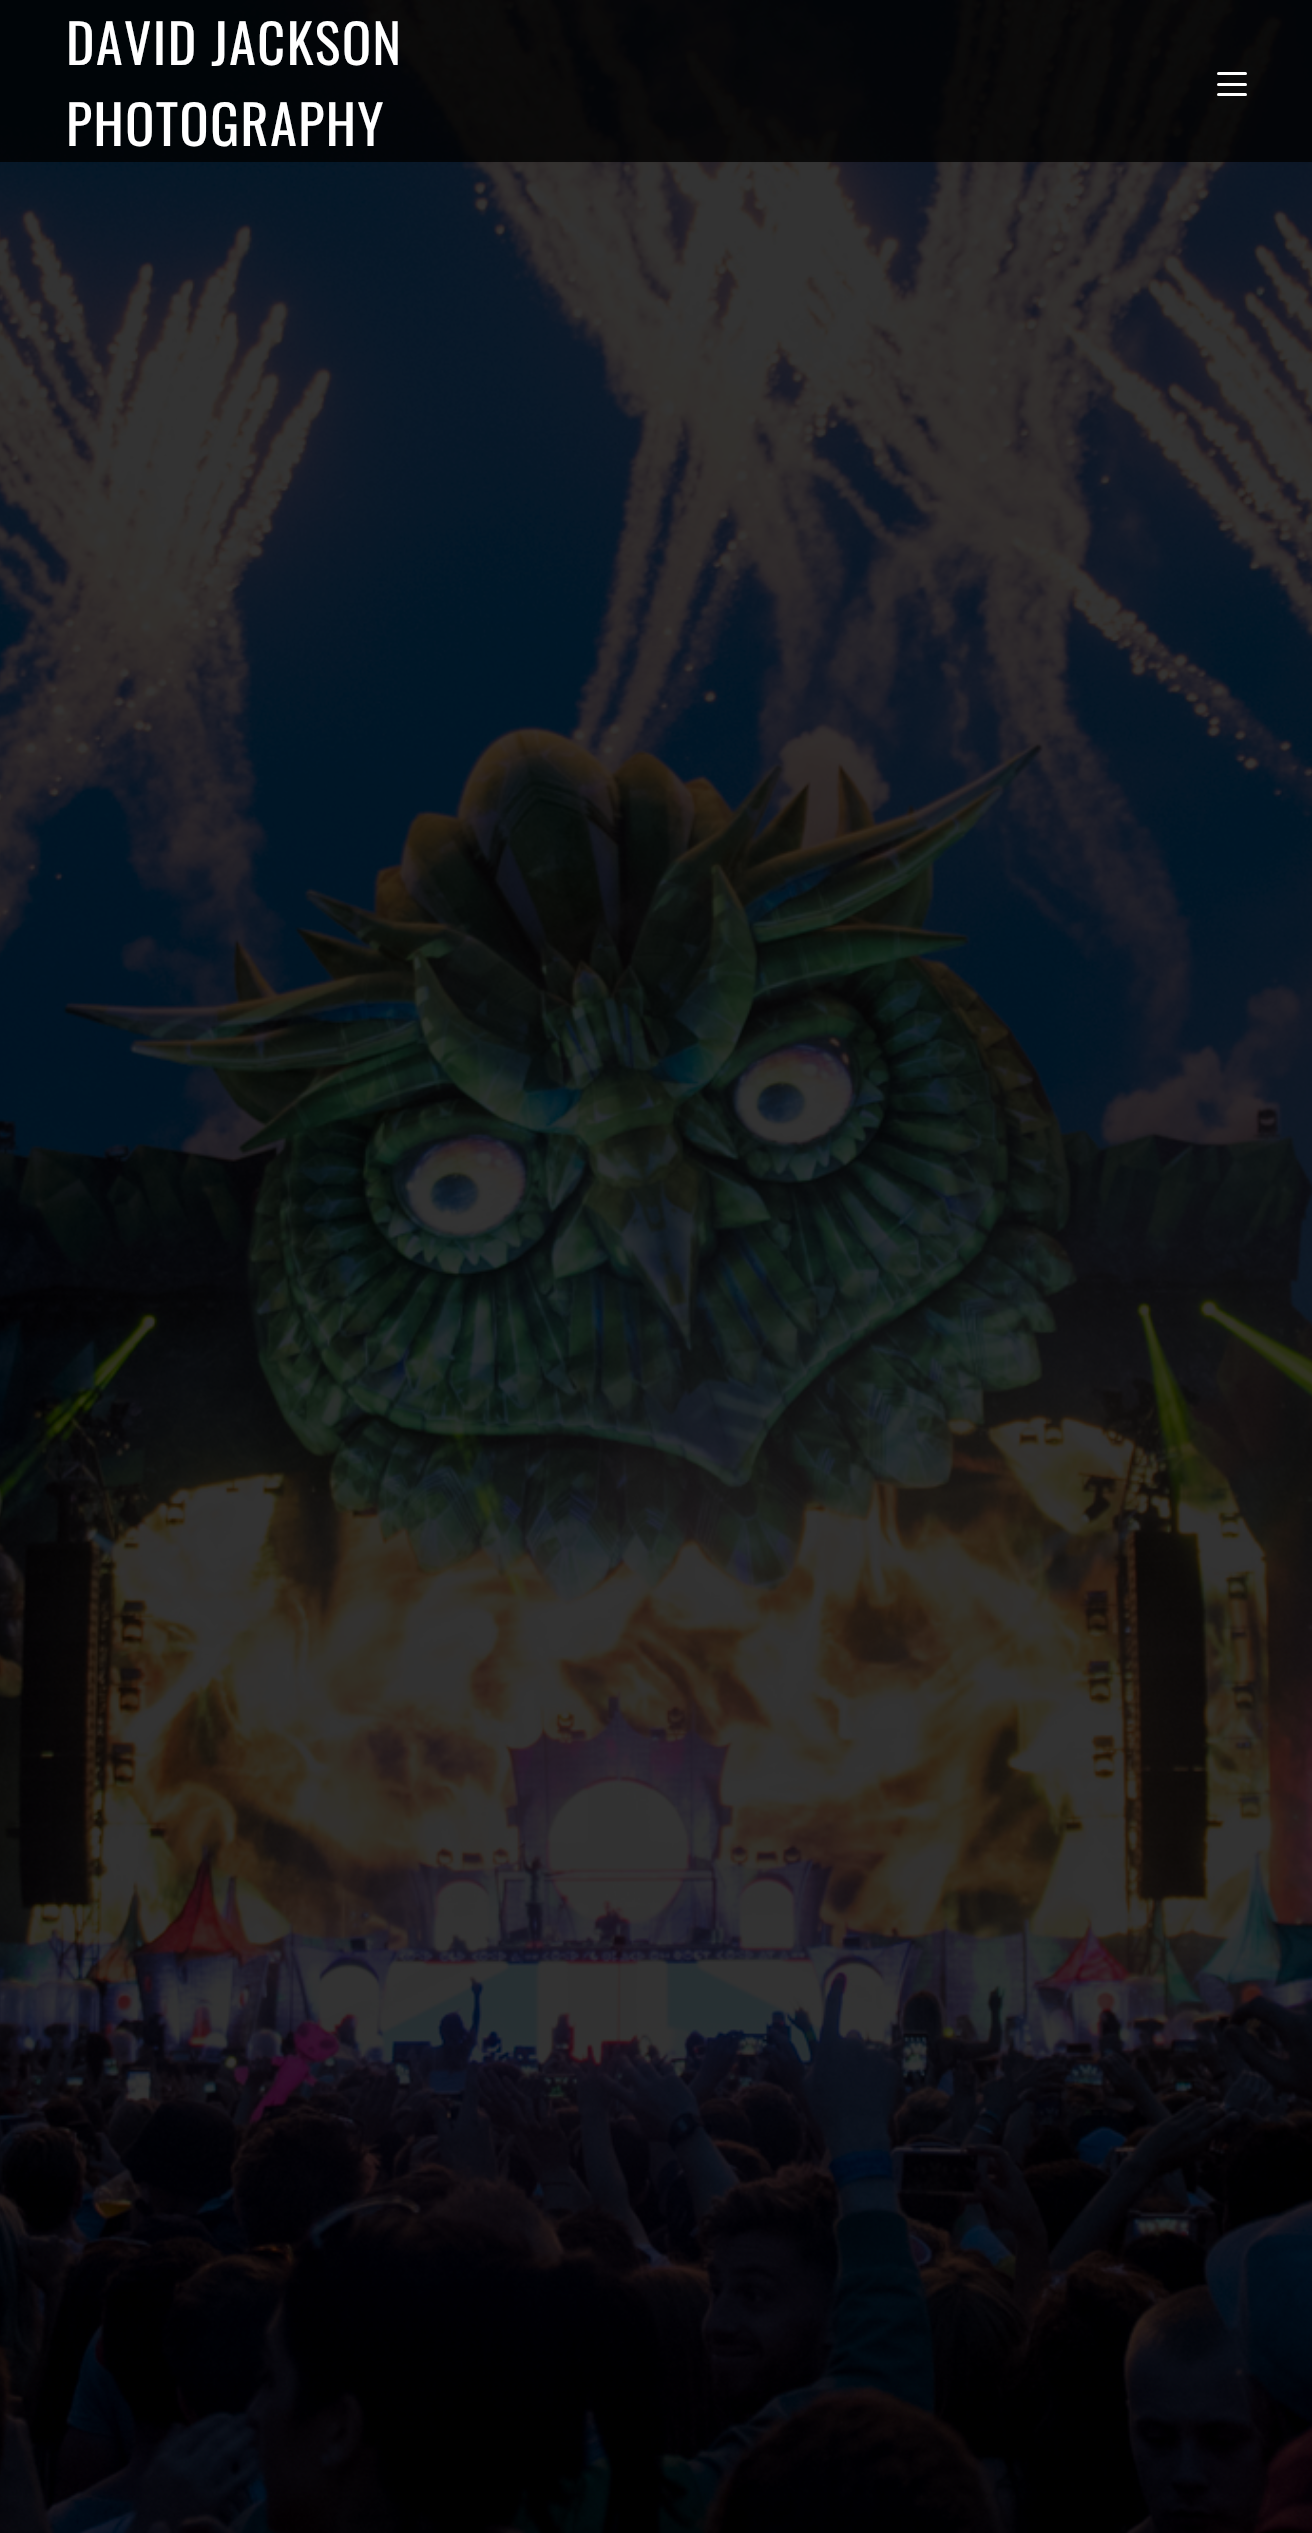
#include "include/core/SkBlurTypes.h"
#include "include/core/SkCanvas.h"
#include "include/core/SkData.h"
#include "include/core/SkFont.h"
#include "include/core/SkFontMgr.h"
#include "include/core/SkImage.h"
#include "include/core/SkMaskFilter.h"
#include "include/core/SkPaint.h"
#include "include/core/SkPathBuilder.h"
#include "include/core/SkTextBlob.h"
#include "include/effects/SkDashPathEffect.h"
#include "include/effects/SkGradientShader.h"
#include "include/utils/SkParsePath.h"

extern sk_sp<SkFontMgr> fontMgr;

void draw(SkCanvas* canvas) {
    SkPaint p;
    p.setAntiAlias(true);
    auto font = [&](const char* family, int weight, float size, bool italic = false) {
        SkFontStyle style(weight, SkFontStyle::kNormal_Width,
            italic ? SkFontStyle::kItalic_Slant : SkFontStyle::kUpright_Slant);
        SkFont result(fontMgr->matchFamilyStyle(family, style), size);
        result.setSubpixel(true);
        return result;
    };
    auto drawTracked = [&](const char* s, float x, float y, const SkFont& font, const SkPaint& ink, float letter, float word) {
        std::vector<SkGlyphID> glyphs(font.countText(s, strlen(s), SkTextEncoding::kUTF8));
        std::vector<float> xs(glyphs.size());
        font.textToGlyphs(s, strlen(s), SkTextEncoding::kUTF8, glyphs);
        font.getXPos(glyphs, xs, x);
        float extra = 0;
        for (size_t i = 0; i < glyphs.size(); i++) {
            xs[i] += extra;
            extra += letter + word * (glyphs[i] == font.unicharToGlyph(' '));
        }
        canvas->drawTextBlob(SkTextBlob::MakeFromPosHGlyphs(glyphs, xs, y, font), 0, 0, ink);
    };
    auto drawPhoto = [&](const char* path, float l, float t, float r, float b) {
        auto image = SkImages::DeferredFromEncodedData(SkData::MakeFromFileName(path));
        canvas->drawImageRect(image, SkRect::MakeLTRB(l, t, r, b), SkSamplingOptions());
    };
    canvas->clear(0xFFFFFFFF);
    drawPhoto("media/1.png", 0, 0, 1312, 2533);
    p.setColor(0xCC000000);
    canvas->drawRect(SkRect::MakeLTRB(0, 0, 1312, 162), p);
    auto font1 = font("Oswald", 400, 54);
    p.setColor(0xFFFFFFFF);
    drawTracked("DAVID JACKSON", 66, 65, font1, p, 1.5f, 0);
    drawTracked("PHOTOGRAPHY", 66, 146, font1, p, 1.5f, 0);
    canvas->drawRoundRect(SkRect::MakeLTRB(1217, 83, 1247, 86), 1.5f, 1.5f, p);
    canvas->drawRoundRect(SkRect::MakeLTRB(1217, 72, 1247, 75), 1.5f, 1.5f, p);
    canvas->drawRoundRect(SkRect::MakeLTRB(1217, 93, 1247, 96), 1.5f, 1.5f, p);
}
